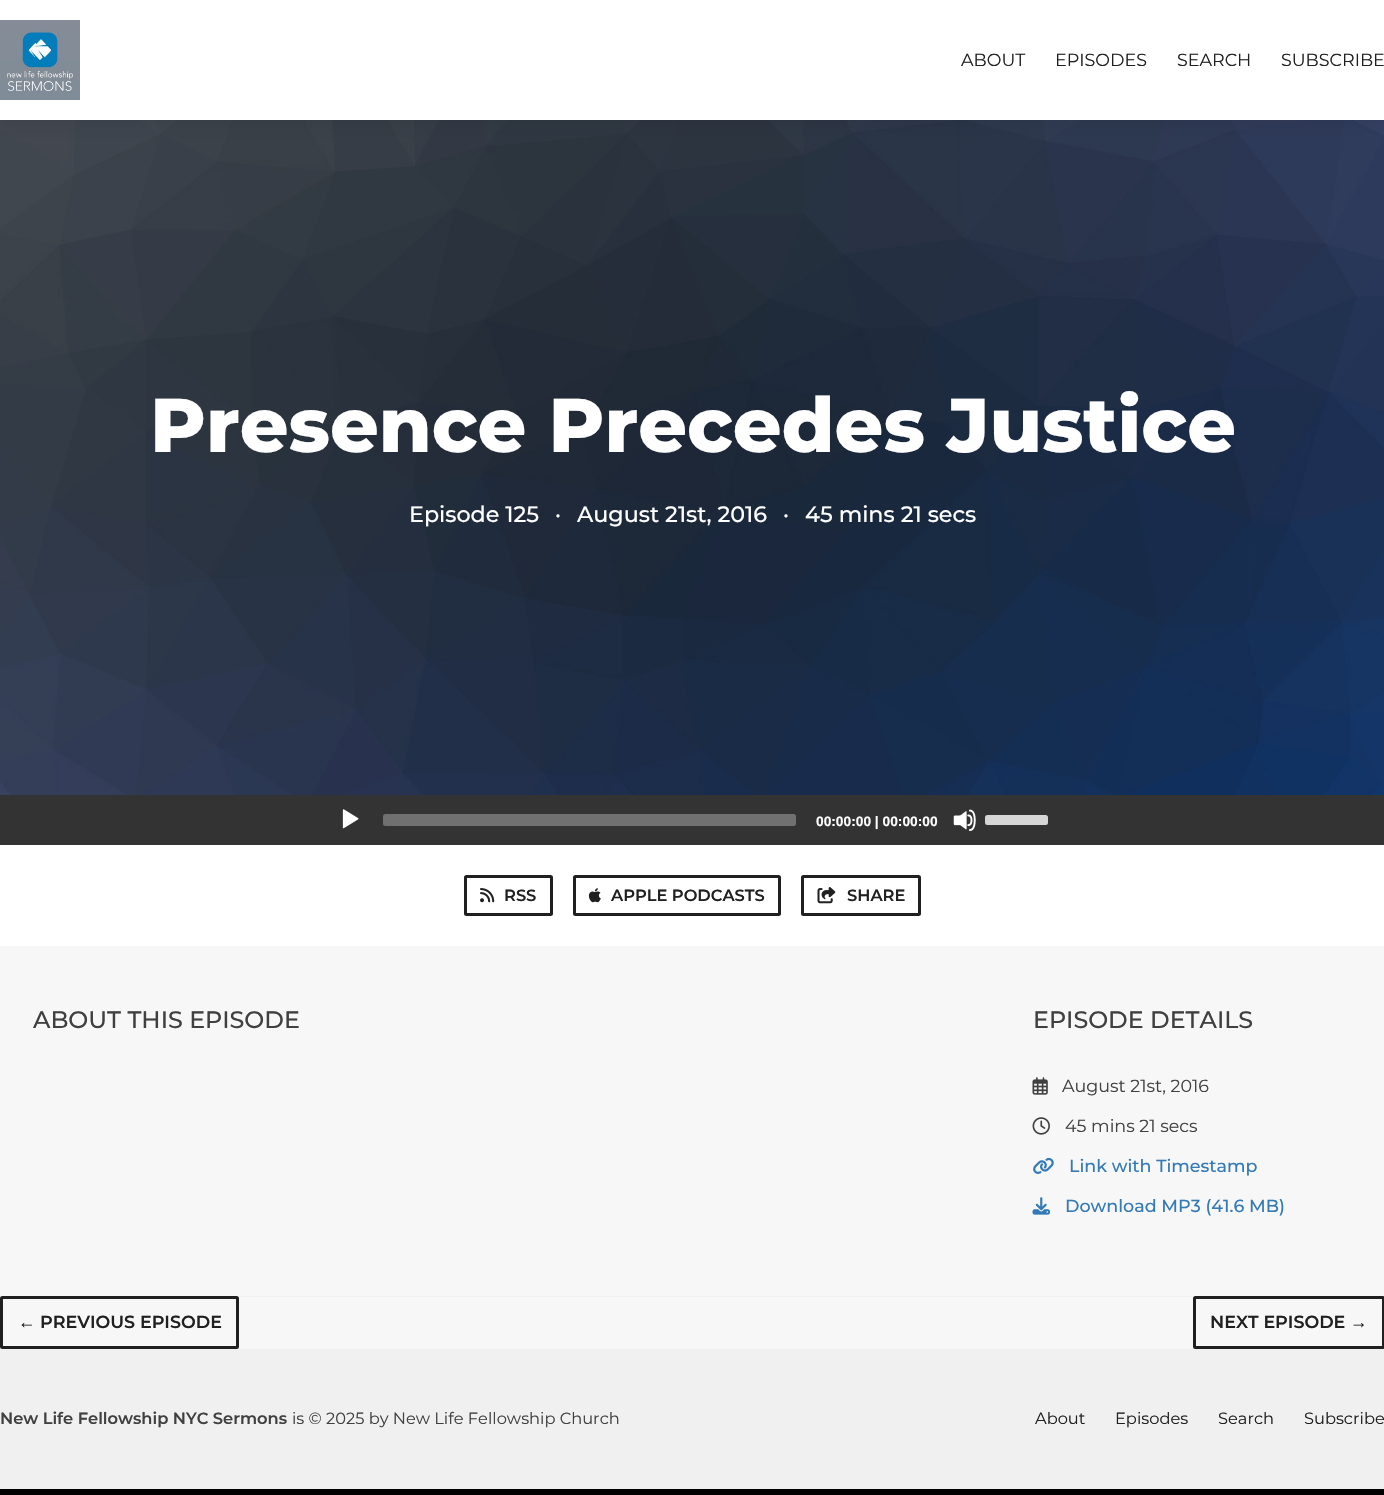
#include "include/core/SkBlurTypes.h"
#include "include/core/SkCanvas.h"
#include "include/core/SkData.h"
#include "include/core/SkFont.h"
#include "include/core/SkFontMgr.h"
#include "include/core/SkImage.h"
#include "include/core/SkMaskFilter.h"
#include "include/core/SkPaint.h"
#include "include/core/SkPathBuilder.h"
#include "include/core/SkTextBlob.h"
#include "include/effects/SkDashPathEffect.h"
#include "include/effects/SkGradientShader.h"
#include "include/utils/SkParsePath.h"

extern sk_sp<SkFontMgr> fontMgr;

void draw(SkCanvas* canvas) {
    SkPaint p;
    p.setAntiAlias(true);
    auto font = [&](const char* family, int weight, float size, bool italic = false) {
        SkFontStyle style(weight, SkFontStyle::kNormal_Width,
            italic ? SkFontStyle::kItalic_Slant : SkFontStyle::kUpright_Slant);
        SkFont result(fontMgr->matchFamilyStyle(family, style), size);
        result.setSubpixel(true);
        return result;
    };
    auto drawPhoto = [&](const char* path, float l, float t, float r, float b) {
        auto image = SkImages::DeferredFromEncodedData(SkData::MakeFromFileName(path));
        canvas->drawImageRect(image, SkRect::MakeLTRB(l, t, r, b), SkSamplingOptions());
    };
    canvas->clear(0xFFF7F7F7);
    drawPhoto("media/2.png", 0, 120, 1384, 795);
    p.setColor(0x1A000000);
    p.setMaskFilter(SkMaskFilter::MakeBlur(kNormal_SkBlurStyle, 10));
    canvas->drawRect(SkRect::MakeLTRB(0, 0, 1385, 120), p);
    p.setMaskFilter(nullptr);
    p.setColor(0xFFFFFFFF);
    canvas->drawRect(SkRect::MakeLTRB(0, 0, 1384, 120), p);
    drawPhoto("media/1.png", 0, 20, 80, 100);
    auto font1 = font("Montserrat", 400, 17.5f);
    p.setColor(0xFF202020);
    {
        const struct { const char* s; float x, y; } items[] = {
            {"ABOUT", 961, 66},
            {"EPISODES", 1055, 66},
            {"SEARCH", 1177, 66},
            {"SUBSCRIBE", 1281, 66},
        };
        for (auto [s, x, y] : items) {
            canvas->drawString(s, x, y, font1, p);
        }
    }
    auto font2 = font("Montserrat", 800, 76);
    p.setColor(0xFFFFFFFF);
    canvas->drawString("Presence Precedes Justice", 150, 452, font2, p);
    auto font3 = font("Montserrat", 500, 22.25f);
    {
        const struct { const char* s; float x, y; } items[] = {
            {"Episode 125", 409, 522},
            {"·", 555, 522},
            {"August 21st, 2016", 577, 522},
            {"·", 783, 522},
            {"45 mins 21 secs", 805, 522},
        };
        for (auto [s, x, y] : items) {
            canvas->drawString(s, x, y, font3, p);
        }
    }
    p.setColor(0xFF333333);
    canvas->drawRect(SkRect::MakeLTRB(0, 795, 1384, 845), p);
    drawPhoto("media/3.png", 342, 809, 359, 829);
    p.setColor(0xFF707070);
    canvas->drawRoundRect(SkRect::MakeLTRB(383, 814, 796, 826), 2.5f, 2.5f, p);
    auto font4 = font("Liberation Sans", 700, 13.75f);
    p.setColor(0xFFFFFFFF);
    canvas->drawString("00:00:00 | 00:00:00", 816, 826, font4, p);
    drawPhoto("media/4.png", 953, 809, 976, 831);
    p.setColor(0xFFD6D6D6);
    canvas->drawRoundRect(SkRect::MakeLTRB(985, 815, 1048, 825), 2.5f, 2.5f, p);
    p.setColor(0xFFFFFFFF);
    canvas->drawRect(SkRect::MakeLTRB(0, 845, 1384, 946), p);
    p.setStyle(SkPaint::kStroke_Style);
    p.setStrokeWidth(3);
    p.setColor(0xFF202020);
    canvas->drawRoundRect(SkRect::MakeLTRB(465.5f, 876.5f, 551.5f, 914.5f), 1, 1, p);
    drawPhoto("media/5.png", 480, 888, 495, 903);
    auto font5 = font("Montserrat", 600, 16.25f);
    p.setStyle(SkPaint::kFill_Style);
    canvas->drawString("RSS", 504, 901, font5, p);
    p.setStyle(SkPaint::kStroke_Style);
    canvas->drawRoundRect(SkRect::MakeLTRB(574.5f, 876.5f, 779.5f, 914.5f), 1, 1, p);
    drawPhoto("media/6.png", 588, 888, 601, 903);
    p.setStyle(SkPaint::kFill_Style);
    canvas->drawString("APPLE PODCASTS", 611, 901, font5, p);
    p.setStyle(SkPaint::kStroke_Style);
    canvas->drawRoundRect(SkRect::MakeLTRB(802.5f, 876.5f, 919.5f, 914.5f), 1, 1, p);
    drawPhoto("media/7.png", 817, 887, 836, 904);
    p.setStyle(SkPaint::kFill_Style);
    canvas->drawString("SHARE", 847, 901, font5, p);
    auto font6 = font("Montserrat", 500, 23.75f);
    p.setColor(0xFF404040);
    canvas->drawString("ABOUT THIS EPISODE", 33, 1028, font6, p);
    canvas->drawString("EPISODE DETAILS", 1033, 1028, font6, p);
    drawPhoto("media/8.png", 1032, 1077, 1048, 1095);
    canvas->drawString("August 21st, 2016", 1062, 1092, font1, p);
    drawPhoto("media/9.png", 1032, 1117, 1050, 1135);
    canvas->drawString("45 mins 21 secs", 1065, 1132, font1, p);
    drawPhoto("media/10.png", 1033, 1157, 1054, 1174);
    auto font7 = font("Montserrat", 500, 17.5f);
    p.setColor(0xFF337AB7);
    canvas->drawString("Link with Timestamp", 1069, 1172, font7, p);
    drawPhoto("media/11.png", 1032, 1197, 1050, 1215);
    canvas->drawString("Download MP3 (41.6 MB)", 1065, 1212, font7, p);
    p.setColor(0xFFF0F0F0);
    canvas->drawRect(SkRect::MakeLTRB(0, 1296, 1384, 1297), p);
    p.setStyle(SkPaint::kStroke_Style);
    p.setColor(0xFF202020);
    canvas->drawRoundRect(SkRect::MakeLTRB(1.5f, 1297.5f, 237.5f, 1347.5f), 1, 1, p);
    auto font8 = font("Liberation Serif", 700, 17.5f);
    p.setStyle(SkPaint::kFill_Style);
    canvas->drawString("←", 18, 1328, font8, p);
    auto font9 = font("Montserrat", 600, 17.5f);
    canvas->drawString("PREVIOUS EPISODE", 40, 1328, font9, p);
    p.setStyle(SkPaint::kStroke_Style);
    canvas->drawRoundRect(SkRect::MakeLTRB(1194.5f, 1297.5f, 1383.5f, 1347.5f), 1, 1, p);
    p.setStyle(SkPaint::kFill_Style);
    canvas->drawString("NEXT EPISODE", 1210, 1328, font9, p);
    canvas->drawString("→", 1350, 1328, font8, p);
    p.setColor(0xFFF0F0F0);
    canvas->drawRect(SkRect::MakeLTRB(0, 1349, 1384, 1489), p);
    p.setColor(0xFF404040);
    canvas->drawString("New Life Fellowship NYC Sermons", 0, 1424, font5, p);
    auto font10 = font("Montserrat", 400, 16.25f);
    canvas->drawString("is © 2025 by New Life Fellowship Church", 292, 1424, font10, p);
    p.setColor(0xFF202020);
    {
        const struct { const char* s; float x, y; } items[] = {
            {"About", 1035, 1424},
            {"Episodes", 1115, 1424},
            {"Search", 1218, 1424},
            {"Subscribe", 1304, 1424},
        };
        for (auto [s, x, y] : items) {
            canvas->drawString(s, x, y, font10, p);
        }
    }
    p.setColor(0xFF000000);
    canvas->drawRect(SkRect::MakeLTRB(0, 1489, 1384, 1495), p);
}
